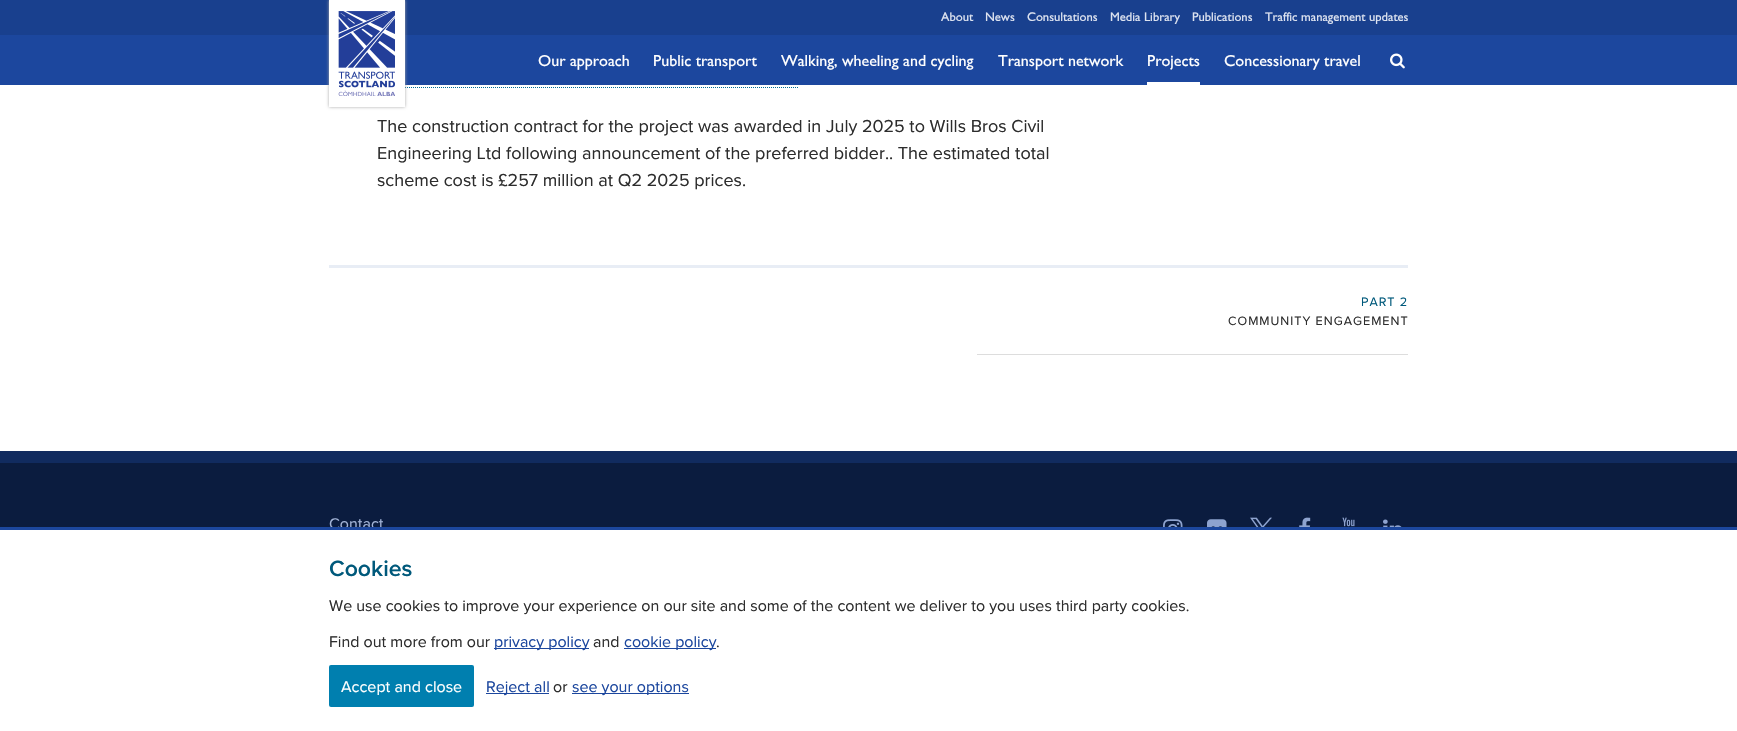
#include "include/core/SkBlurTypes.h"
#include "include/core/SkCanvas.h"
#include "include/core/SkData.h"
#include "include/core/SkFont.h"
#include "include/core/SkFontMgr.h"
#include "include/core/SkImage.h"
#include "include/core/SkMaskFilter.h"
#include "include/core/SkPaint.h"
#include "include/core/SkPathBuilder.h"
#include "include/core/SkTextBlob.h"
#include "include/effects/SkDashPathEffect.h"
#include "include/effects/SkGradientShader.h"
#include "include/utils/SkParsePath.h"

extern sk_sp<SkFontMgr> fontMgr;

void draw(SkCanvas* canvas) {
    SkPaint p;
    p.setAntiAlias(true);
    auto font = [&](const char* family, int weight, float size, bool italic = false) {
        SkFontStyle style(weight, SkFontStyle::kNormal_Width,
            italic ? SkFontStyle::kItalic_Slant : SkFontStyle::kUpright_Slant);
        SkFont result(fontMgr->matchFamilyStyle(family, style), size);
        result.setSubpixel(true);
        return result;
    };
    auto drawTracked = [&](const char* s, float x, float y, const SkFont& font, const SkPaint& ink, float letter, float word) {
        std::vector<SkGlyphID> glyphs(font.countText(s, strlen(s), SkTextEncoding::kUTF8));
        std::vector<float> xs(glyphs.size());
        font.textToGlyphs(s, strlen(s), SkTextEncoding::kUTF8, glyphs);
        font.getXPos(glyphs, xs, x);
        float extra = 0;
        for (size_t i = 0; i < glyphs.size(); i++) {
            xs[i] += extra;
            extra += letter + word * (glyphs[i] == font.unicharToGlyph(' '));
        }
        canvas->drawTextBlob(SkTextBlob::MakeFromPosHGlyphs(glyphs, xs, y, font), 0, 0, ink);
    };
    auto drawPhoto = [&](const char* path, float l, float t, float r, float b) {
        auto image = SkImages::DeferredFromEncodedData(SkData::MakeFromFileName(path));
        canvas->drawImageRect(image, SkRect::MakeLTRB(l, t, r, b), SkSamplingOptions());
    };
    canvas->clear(0xFFFFFFFF);
    p.setColor(0xFF1C479E);
    canvas->drawRect(SkRect::MakeLTRB(0, 35, 1737, 85), p);
    p.setColor(0xFF19408E);
    canvas->drawRect(SkRect::MakeLTRB(0, 0, 1737, 35), p);
    p.setStyle(SkPaint::kStroke_Style);
    p.setStrokeWidth(1);
    p.setColor(0xFF006C95);
    p.setPathEffect(SkDashPathEffect::Make({{1, 1}}, 0));
    canvas->drawPath(SkPathBuilder().moveTo(377, 87.5f).lineTo(799, 87.5f).detach(), p);
    p.setPathEffect(nullptr);
    p.setStyle(SkPaint::kFill_Style);
    p.setColor(0xFFAAAAAA);
    p.setMaskFilter(SkMaskFilter::MakeBlur(kNormal_SkBlurStyle, 1.5f));
    canvas->drawRect(SkRect::MakeLTRB(329, 0, 405, 107), p);
    p.setMaskFilter(nullptr);
    p.setColor(0xFFFFFFFF);
    canvas->drawRect(SkRect::MakeLTRB(329, 0, 405, 107), p);
    drawPhoto("media/1.png", 338, 11, 395, 96);
    auto font1 = font("Gill Sans", 500, 12.6f);
    p.setColor(0xFFDDE3F0);
    {
        const struct { const char* s; float x, y; } items[] = {
            {"About", 941, 21},
            {"News", 985, 21},
            {"Consultations", 1027, 21},
            {"Media Library", 1110, 21},
            {"Publications", 1192, 21},
            {"Traffic management updates", 1265, 21},
        };
        for (auto [s, x, y] : items) {
            canvas->drawString(s, x, y, font1, p);
        }
    }
    auto font2 = font("Gill Sans", 500, 16);
    p.setColor(0xFFFFFFFF);
    {
        const struct { const char* s; float x, y; } items[] = {
            {"Our approach", 538, 66},
            {"Public transport", 653, 66},
            {"Walking, wheeling and cycling", 781, 66},
            {"Transport network", 998, 66},
            {"Projects", 1147, 66},
        };
        for (auto [s, x, y] : items) {
            canvas->drawString(s, x, y, font2, p);
        }
    }
    canvas->drawRect(SkRect::MakeLTRB(1147, 82, 1200, 85), p);
    canvas->drawString("Concessionary travel", 1224, 66, font2, p);
    drawPhoto("media/2.png", 1390, 53, 1405, 69);
    auto font3 = font("Proxima Nova", 400, 18);
    p.setColor(0xFF2D2D2D);
    {
        const struct { const char* s; float x, y; } items[] = {
            {"The construction contract for the project was awarded in July 2025 to Wills Bros Civil", 377, 132},
            {"Engineering Ltd following announcement of the preferred bidder.. The estimated total", 377, 159},
            {"scheme cost is £257 million at Q2 2025 prices.", 377, 186},
        };
        for (auto [s, x, y] : items) {
            canvas->drawString(s, x, y, font3, p);
        }
    }
    p.setColor(0xFFE8EDF5);
    canvas->drawRect(SkRect::MakeLTRB(329, 265, 1408, 268), p);
    p.setColor(0xFFDDDDDD);
    canvas->drawRect(SkRect::MakeLTRB(977, 354, 1408, 355), p);
    auto font4 = font("Proxima Nova", 400, 12.6f);
    p.setColor(0xFF00597B);
    drawTracked("PART 2", 1361, 306, font4, p, 1, 0);
    p.setColor(0xFF2D2D2D);
    drawTracked("COMMUNITY ENGAGEMENT", 1228, 325, font4, p, 1, 0);
    p.setColor(0xFF0B1C3F);
    canvas->drawRect(SkRect::MakeLTRB(0, 463, 1737, 527), p);
    p.setColor(0xFF112B5F);
    canvas->drawRect(SkRect::MakeLTRB(0, 451, 1737, 463), p);
    auto font5 = font("Proxima Nova", 400, 16);
    p.setColor(0xFFA4B5D8);
    canvas->drawString("Contact", 329, 529, font5, p);
    drawPhoto("media/3.png", 1163, 519, 1183, 527);
    drawPhoto("media/4.png", 1207, 519, 1227, 527);
    drawPhoto("media/5.png", 1250, 517, 1272, 527);
    drawPhoto("media/6.png", 1299, 517, 1311, 527);
    drawPhoto("media/7.png", 1342, 517, 1355, 527);
    drawPhoto("media/8.png", 1383, 519, 1402, 527);
    p.setColor(0xFF1C479E);
    canvas->drawRect(SkRect::MakeLTRB(0, 527, 1737, 530), p);
    auto font6 = font("Proxima Nova", 600, 23);
    p.setColor(0xFF00597B);
    canvas->drawString("Cookies", 329, 576, font6, p);
    p.setColor(0xFF2D2D2D);
    canvas->drawString("We use cookies to improve your experience on our site and some of the content we deliver to you uses third party cookies.", 329, 611, font5, p);
    canvas->drawString("Find out more from our", 329, 647, font5, p);
    p.setColor(0xFF1C479E);
    canvas->drawRect(SkRect::MakeLTRB(494, 648, 589, 649), p);
    canvas->drawString("privacy policy", 494, 647, font5, p);
    p.setColor(0xFF2D2D2D);
    canvas->drawString("and", 593, 647, font5, p);
    p.setColor(0xFF1C479E);
    canvas->drawRect(SkRect::MakeLTRB(624, 648, 716, 649), p);
    canvas->drawString("cookie policy", 624, 647, font5, p);
    p.setColor(0xFF2D2D2D);
    canvas->drawString(".", 716, 647, font5, p);
    p.setColor(0xFF007FAF);
    canvas->drawRoundRect(SkRect::MakeLTRB(329, 665, 474, 707), 2, 2, p);
    p.setColor(0xFFFFFFFF);
    canvas->drawString("Accept and close", 341, 692, font5, p);
    p.setColor(0xFF1C479E);
    canvas->drawRect(SkRect::MakeLTRB(486, 693, 549, 694), p);
    canvas->drawString("Reject all", 486, 692, font5, p);
    p.setColor(0xFF2D2D2D);
    canvas->drawString("or", 553, 692, font5, p);
    p.setColor(0xFF1C479E);
    canvas->drawRect(SkRect::MakeLTRB(572, 693, 689, 694), p);
    canvas->drawString("see your options", 572, 692, font5, p);
}
